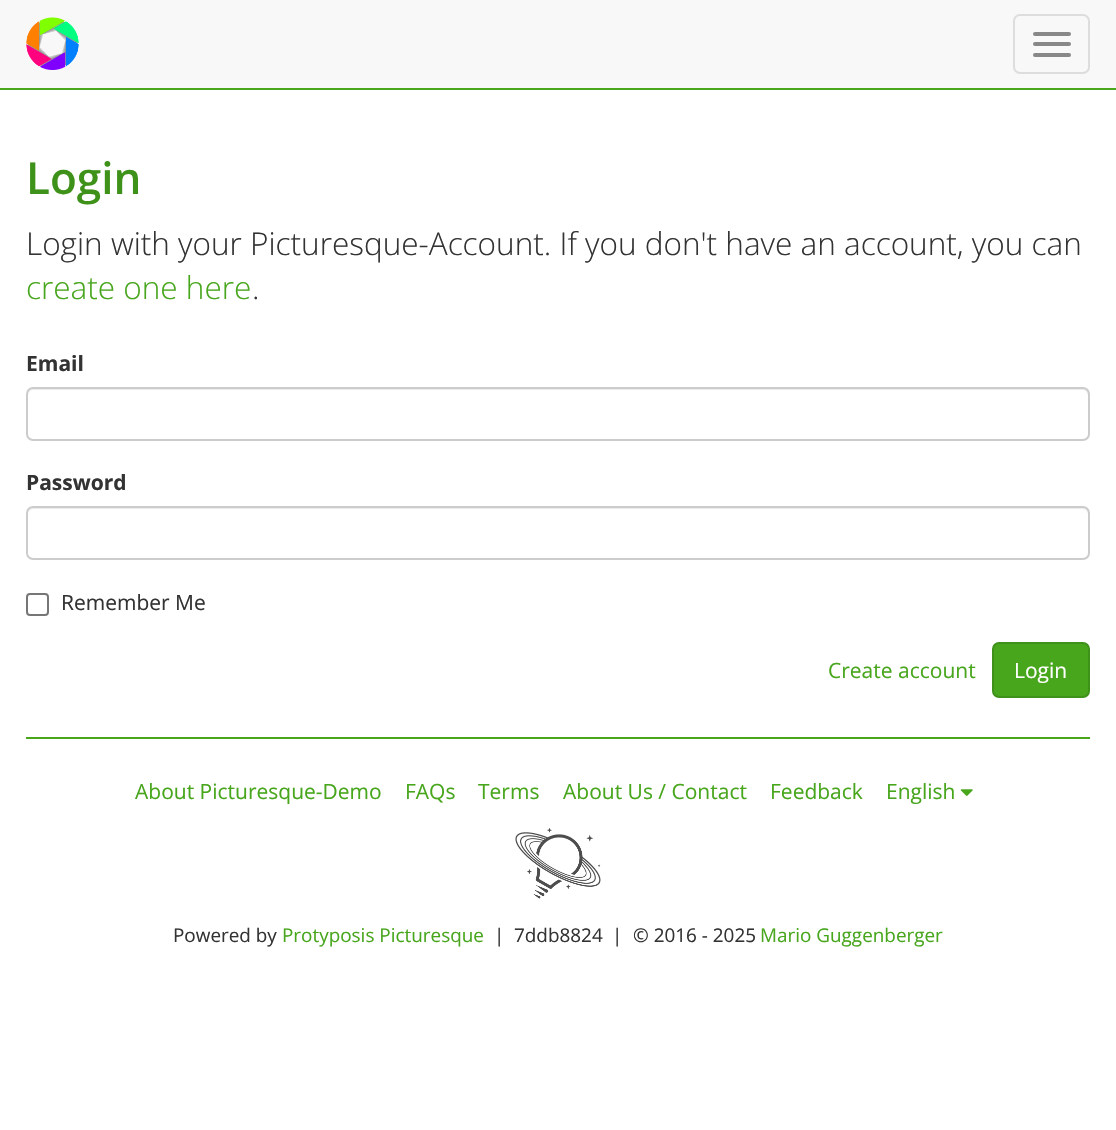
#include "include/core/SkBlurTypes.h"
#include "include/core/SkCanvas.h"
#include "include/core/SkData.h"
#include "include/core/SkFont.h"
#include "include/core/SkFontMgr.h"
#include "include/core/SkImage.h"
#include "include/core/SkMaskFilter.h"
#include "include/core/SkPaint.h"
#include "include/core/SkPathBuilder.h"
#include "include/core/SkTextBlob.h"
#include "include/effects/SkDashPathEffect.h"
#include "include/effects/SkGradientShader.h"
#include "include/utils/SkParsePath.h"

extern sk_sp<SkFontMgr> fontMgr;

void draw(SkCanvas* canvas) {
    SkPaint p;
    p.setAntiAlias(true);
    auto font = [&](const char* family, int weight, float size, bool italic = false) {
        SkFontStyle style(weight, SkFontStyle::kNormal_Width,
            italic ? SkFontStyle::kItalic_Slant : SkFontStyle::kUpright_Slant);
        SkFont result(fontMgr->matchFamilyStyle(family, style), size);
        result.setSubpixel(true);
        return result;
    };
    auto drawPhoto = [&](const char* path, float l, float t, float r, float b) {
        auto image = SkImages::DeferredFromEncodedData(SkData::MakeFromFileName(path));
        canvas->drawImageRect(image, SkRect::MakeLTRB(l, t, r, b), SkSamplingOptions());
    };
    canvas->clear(0xFFFFFFFF);
    p.setColor(0xFFF8F8F8);
    canvas->drawRect(SkRect::MakeLTRB(0, 0, 1116, 88), p);
    p.setColor(0xFF48A61D);
    canvas->drawRect(SkRect::MakeLTRB(0, 88, 1116, 90), p);
    drawPhoto("media/1.png", 26, 17, 79, 70);
    p.setStyle(SkPaint::kStroke_Style);
    p.setStrokeWidth(2);
    p.setColor(0xFFDDDDDD);
    canvas->drawRoundRect(SkRect::MakeLTRB(1014, 15, 1089, 73), 6, 6, p);
    p.setStyle(SkPaint::kFill_Style);
    p.setColor(0xFF888888);
    canvas->drawRoundRect(SkRect::MakeLTRB(1033, 32, 1071, 36), 2, 2, p);
    canvas->drawRoundRect(SkRect::MakeLTRB(1033, 42, 1071, 46), 2, 2, p);
    canvas->drawRoundRect(SkRect::MakeLTRB(1033, 53, 1071, 57), 2, 2, p);
    auto font1 = font("Open Sans", 600, 44);
    p.setColor(0xFF3E9119);
    canvas->drawString("Login", 26, 194, font1, p);
    auto font2 = font("Open Sans", 300, 31.5f);
    p.setColor(0xFF333333);
    canvas->drawString("Login with your Picturesque-Account. If you don't have an account, you can", 26, 255, font2, p);
    p.setColor(0xFF48A61D);
    canvas->drawString("create one here", 26, 299, font2, p);
    p.setColor(0xFF333333);
    canvas->drawString(".", 252, 299, font2, p);
    auto font3 = font("Open Sans", 700, 21);
    canvas->drawString("Email", 26, 371, font3, p);
    p.setColor(0xFFECECEC);
    canvas->drawPath(SkPathBuilder().moveTo(33, 390).lineTo(1083, 390).cubicTo(1086, 390, 1088, 393, 1088, 396).lineTo(1088, 437).cubicTo(1089, 436, 1089, 435, 1089, 434).lineTo(1089, 394).cubicTo(1089, 391, 1087, 389, 1084, 389).lineTo(33, 389).cubicTo(30, 389, 28, 391, 28, 394).lineTo(28, 396).cubicTo(28, 393, 30, 390, 33, 390).close().detach(), p);
    p.setStyle(SkPaint::kStroke_Style);
    p.setColor(0xFFCCCCCC);
    canvas->drawRoundRect(SkRect::MakeLTRB(27, 388, 1089, 440), 6, 6, p);
    p.setStyle(SkPaint::kFill_Style);
    p.setColor(0xFF333333);
    canvas->drawString("Password", 26, 490, font3, p);
    p.setColor(0xFFECECEC);
    canvas->drawPath(SkPathBuilder().moveTo(33, 509).lineTo(1083, 509).cubicTo(1086, 509, 1088, 512, 1088, 514).lineTo(1088, 556).cubicTo(1089, 555, 1089, 554, 1089, 553).lineTo(1089, 513).cubicTo(1089, 510, 1087, 508, 1084, 508).lineTo(33, 508).cubicTo(30, 508, 28, 510, 28, 513).lineTo(28, 514).cubicTo(28, 512, 30, 509, 33, 509).close().detach(), p);
    p.setStyle(SkPaint::kStroke_Style);
    p.setColor(0xFFCCCCCC);
    canvas->drawRoundRect(SkRect::MakeLTRB(27, 507, 1089, 559), 6, 6, p);
    p.setColor(0xFF767676);
    canvas->drawRoundRect(SkRect::MakeLTRB(27, 594, 48, 615), 3, 3, p);
    auto font4 = font("Open Sans", 400, 21);
    p.setStyle(SkPaint::kFill_Style);
    p.setColor(0xFF333333);
    canvas->drawString("Remember Me", 61, 610, font4, p);
    p.setColor(0xFF48A61D);
    canvas->drawString("Create account", 828, 678, font4, p);
    canvas->drawRoundRect(SkRect::MakeLTRB(993, 643, 1089, 697), 6, 6, p);
    p.setStyle(SkPaint::kStroke_Style);
    p.setColor(0xFF3E9119);
    canvas->drawRoundRect(SkRect::MakeLTRB(993, 643, 1089, 697), 6, 6, p);
    p.setStyle(SkPaint::kFill_Style);
    p.setColor(0xFFFFFFFF);
    canvas->drawString("Login", 1014, 678, font4, p);
    p.setColor(0xFF48A61D);
    canvas->drawRect(SkRect::MakeLTRB(26, 737, 1090, 739), p);
    {
        const struct { const char* s; float x, y; } items[] = {
            {"About Picturesque-Demo", 135, 799},
            {"FAQs", 405, 799},
            {"Terms", 478, 799},
            {"About Us / Contact", 563, 799},
            {"Feedback", 770, 799},
            {"English", 886, 799},
        };
        for (auto [s, x, y] : items) {
            canvas->drawString(s, x, y, font4, p);
        }
    }
    drawPhoto("media/2.png", 960, 789, 973, 796);
    drawPhoto("media/3.png", 515, 828, 601, 899);
    auto font5 = font("Open Sans", 400, 18.9f);
    p.setColor(0xFF333333);
    canvas->drawString("Powered by", 173, 942, font5, p);
    p.setColor(0xFF48A61D);
    canvas->drawString("Protyposis Picturesque", 282, 942, font5, p);
    p.setColor(0xFF333333);
    {
        const struct { const char* s; float x, y; } items[] = {
            {"|", 494, 942},
            {"7ddb8824", 514, 942},
            {"|", 612, 942},
            {"© 2016 - 2025", 633, 942},
        };
        for (auto [s, x, y] : items) {
            canvas->drawString(s, x, y, font5, p);
        }
    }
    p.setColor(0xFF48A61D);
    canvas->drawString("Mario Guggenberger", 760, 942, font5, p);
}
